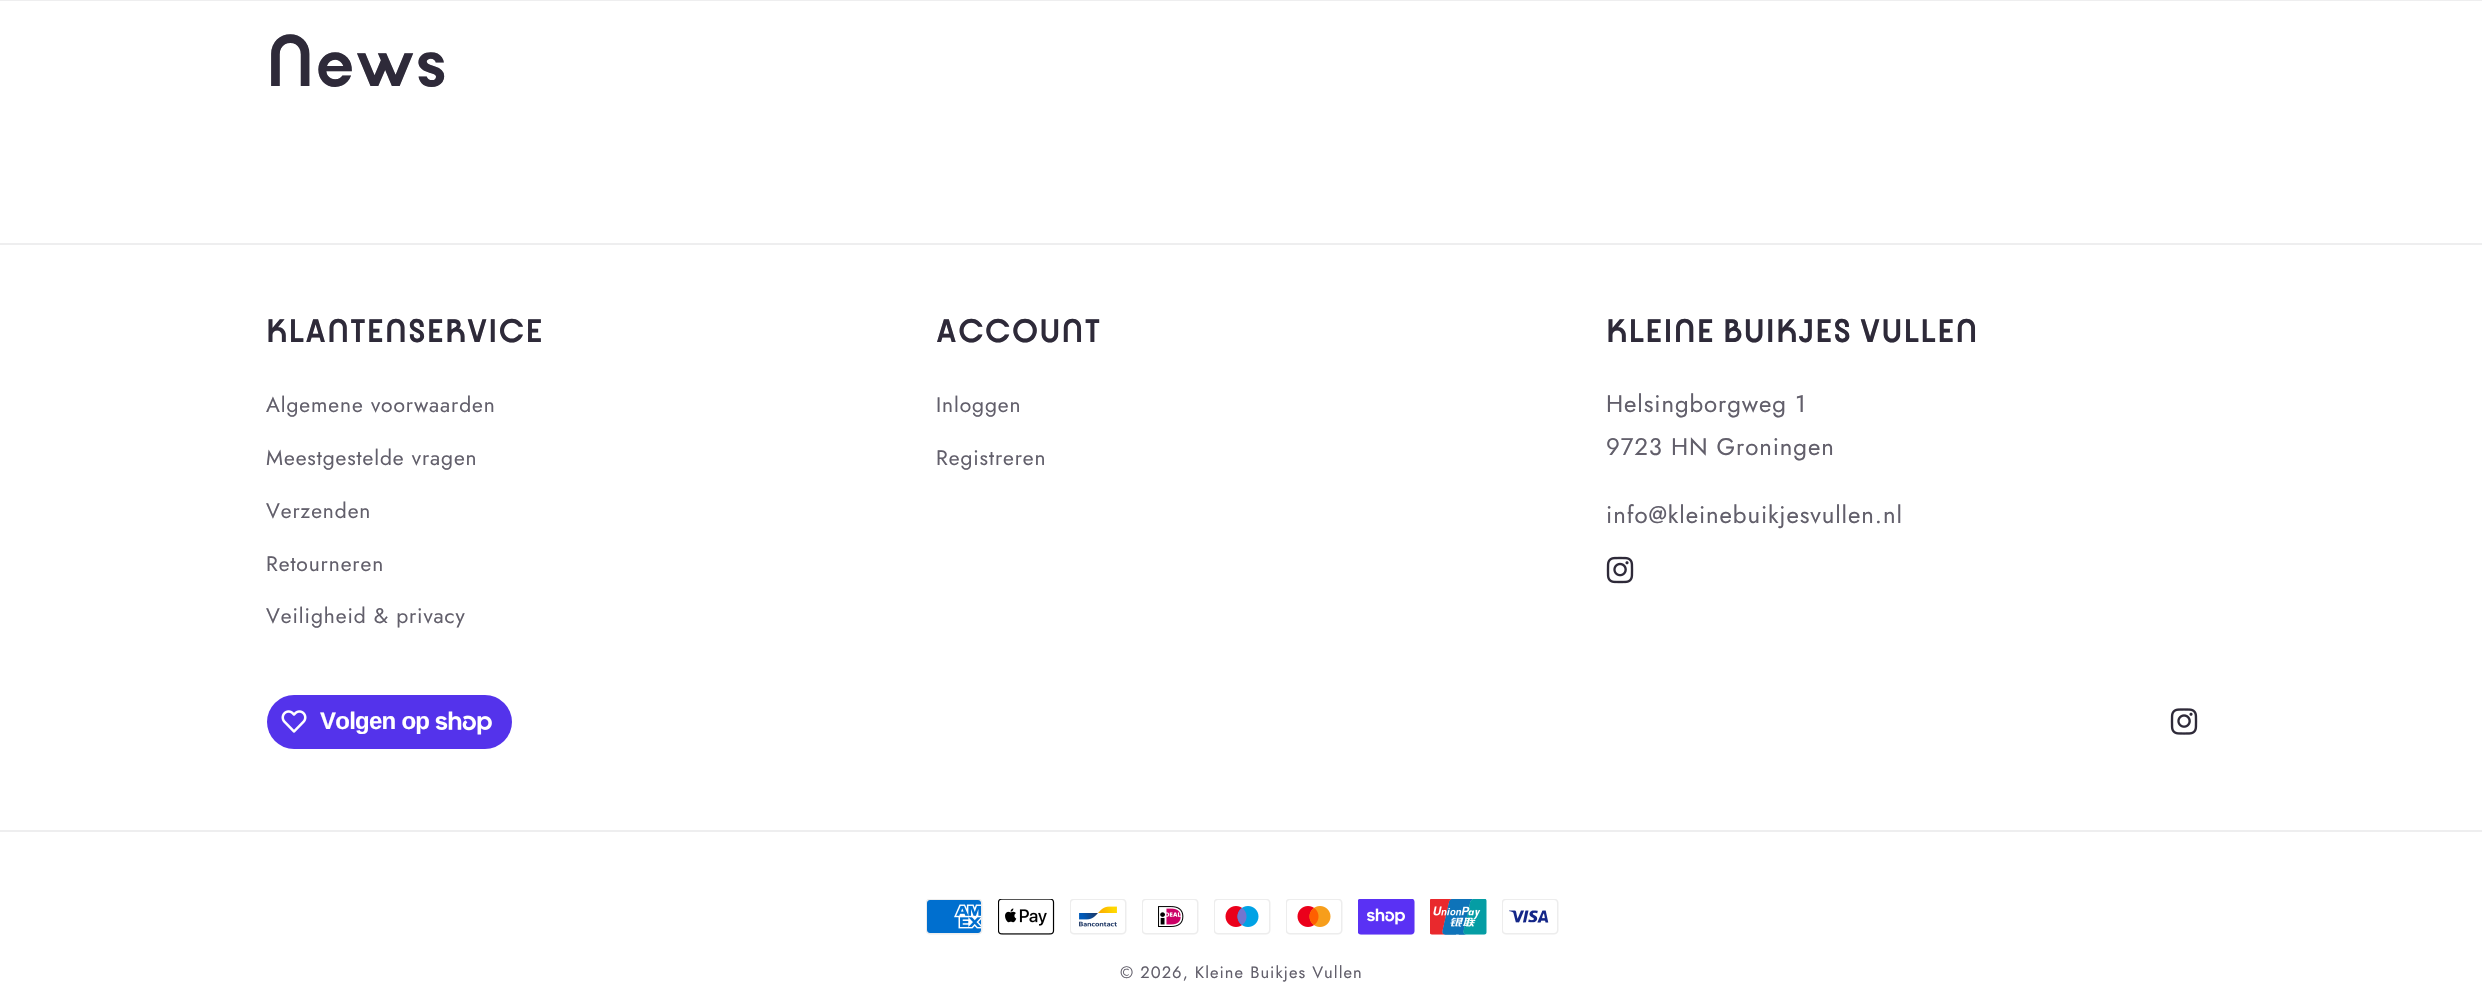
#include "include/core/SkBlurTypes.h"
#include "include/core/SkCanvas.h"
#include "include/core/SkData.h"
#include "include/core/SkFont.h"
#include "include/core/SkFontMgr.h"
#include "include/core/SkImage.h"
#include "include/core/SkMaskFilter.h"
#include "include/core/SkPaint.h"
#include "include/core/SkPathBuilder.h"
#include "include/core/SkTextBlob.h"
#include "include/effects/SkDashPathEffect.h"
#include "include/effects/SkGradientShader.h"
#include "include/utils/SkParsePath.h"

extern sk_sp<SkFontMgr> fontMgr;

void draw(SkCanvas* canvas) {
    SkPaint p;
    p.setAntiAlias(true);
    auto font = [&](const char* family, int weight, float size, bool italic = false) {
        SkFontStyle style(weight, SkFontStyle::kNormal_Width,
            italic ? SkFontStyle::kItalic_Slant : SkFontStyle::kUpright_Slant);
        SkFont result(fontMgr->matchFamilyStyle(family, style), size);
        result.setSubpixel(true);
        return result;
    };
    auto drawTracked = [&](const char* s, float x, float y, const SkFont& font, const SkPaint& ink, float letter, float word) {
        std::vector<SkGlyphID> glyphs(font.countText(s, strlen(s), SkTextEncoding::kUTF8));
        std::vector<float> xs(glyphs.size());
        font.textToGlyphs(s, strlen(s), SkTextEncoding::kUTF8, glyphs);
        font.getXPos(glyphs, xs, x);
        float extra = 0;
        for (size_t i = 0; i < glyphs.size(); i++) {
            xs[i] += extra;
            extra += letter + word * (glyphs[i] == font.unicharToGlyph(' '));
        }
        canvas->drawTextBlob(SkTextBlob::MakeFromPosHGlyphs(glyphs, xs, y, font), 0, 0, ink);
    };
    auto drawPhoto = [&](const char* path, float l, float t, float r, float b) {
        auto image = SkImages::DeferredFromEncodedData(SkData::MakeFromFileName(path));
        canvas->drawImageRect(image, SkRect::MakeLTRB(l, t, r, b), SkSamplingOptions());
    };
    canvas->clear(0xFFFFFFFF);
    p.setColor(0xFFEEEEEF);
    canvas->drawRect(SkRect::MakeLTRB(0, 0, 2482, 1), p);
    auto font1 = font("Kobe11", 700, 78);
    p.setColor(0xFF2E2A39);
    drawTracked("News", 266, 86, font1, p, 1.2f, 0);
    p.setColor(0xFFEEEEEF);
    canvas->drawRect(SkRect::MakeLTRB(0, 243, 2482, 245), p);
    auto font2 = font("Kobe11", 700, 35.1f);
    p.setColor(0xFF2E2A39);
    drawTracked("KLANTENSERVICE", 266, 342, font2, p, 1.2f, 0);
    auto font3 = font("Jost", 400, 21);
    p.setColor(0xFF625F6B);
    {
        const struct { const char* s; float x, y; } items[] = {
            {"Algemene voorwaarden", 266, 412},
            {"Meestgestelde vragen", 266, 465},
            {"Verzenden", 266, 518},
            {"Retourneren", 266, 571},
            {"Veiligheid & privacy", 266, 623},
        };
        for (auto [s, x, y] : items) {
            drawTracked(s, x, y, font3, p, 0.9f, 0);
        }
    }
    p.setColor(0xFF2E2A39);
    drawTracked("ACCOUNT", 936, 342, font2, p, 1.2f, 0);
    p.setColor(0xFF625F6B);
    drawTracked("Inloggen", 936, 412, font3, p, 0.9f, 0);
    drawTracked("Registreren", 936, 465, font3, p, 0.9f, 0);
    p.setColor(0xFF2E2A39);
    drawTracked("KLEINE BUIKJES VULLEN", 1606, 342, font2, p, 1.2f, 0);
    auto font4 = font("Jost", 400, 24);
    p.setColor(0xFF625F6B);
    {
        const struct { const char* s; float x, y; } items[] = {
            {"Helsingborgweg 1", 1606, 412},
            {"9723 HN Groningen", 1606, 455},
            {"info@kleinebuikjesvullen.nl", 1606, 523},
        };
        for (auto [s, x, y] : items) {
            drawTracked(s, x, y, font4, p, 0.9f, 0);
        }
    }
    drawPhoto("media/1.png", 1606, 556, 1634, 584);
    p.setColor(0xFF5433EB);
    canvas->drawRoundRect(SkRect::MakeLTRB(267, 695, 512, 749), 27, 27, p);
    drawPhoto("media/2.png", 281, 710, 307, 733);
    auto font5 = font("Liberation Sans", 700, 24);
    p.setColor(0xFFFFFFFF);
    drawTracked("Volgen op", 320, 729, font5, p, -0.75f, 0);
    drawPhoto("media/3.png", 435, 711, 492, 735);
    drawPhoto("media/4.png", 2170, 708, 2198, 735);
    p.setColor(0xFFEEEEEF);
    canvas->drawRect(SkRect::MakeLTRB(0, 830, 2482, 832), p);
    drawPhoto("media/5.png", 926, 899, 983, 935);
    drawPhoto("media/6.png", 998, 899, 1055, 935);
    drawPhoto("media/7.png", 1070, 899, 1127, 935);
    drawPhoto("media/8.png", 1142, 899, 1199, 935);
    drawPhoto("media/9.png", 1214, 899, 1271, 935);
    drawPhoto("media/10.png", 1286, 899, 1343, 935);
    drawPhoto("media/11.png", 1358, 899, 1415, 935);
    drawPhoto("media/12.png", 1430, 899, 1487, 935);
    drawPhoto("media/13.png", 1502, 899, 1559, 935);
    auto font6 = font("Jost", 400, 16.5f);
    p.setColor(0xFF625F6B);
    drawTracked("© 2026, Kleine Buikjes Vullen", 1120, 978, font6, p, 1.05f, 0);
}
